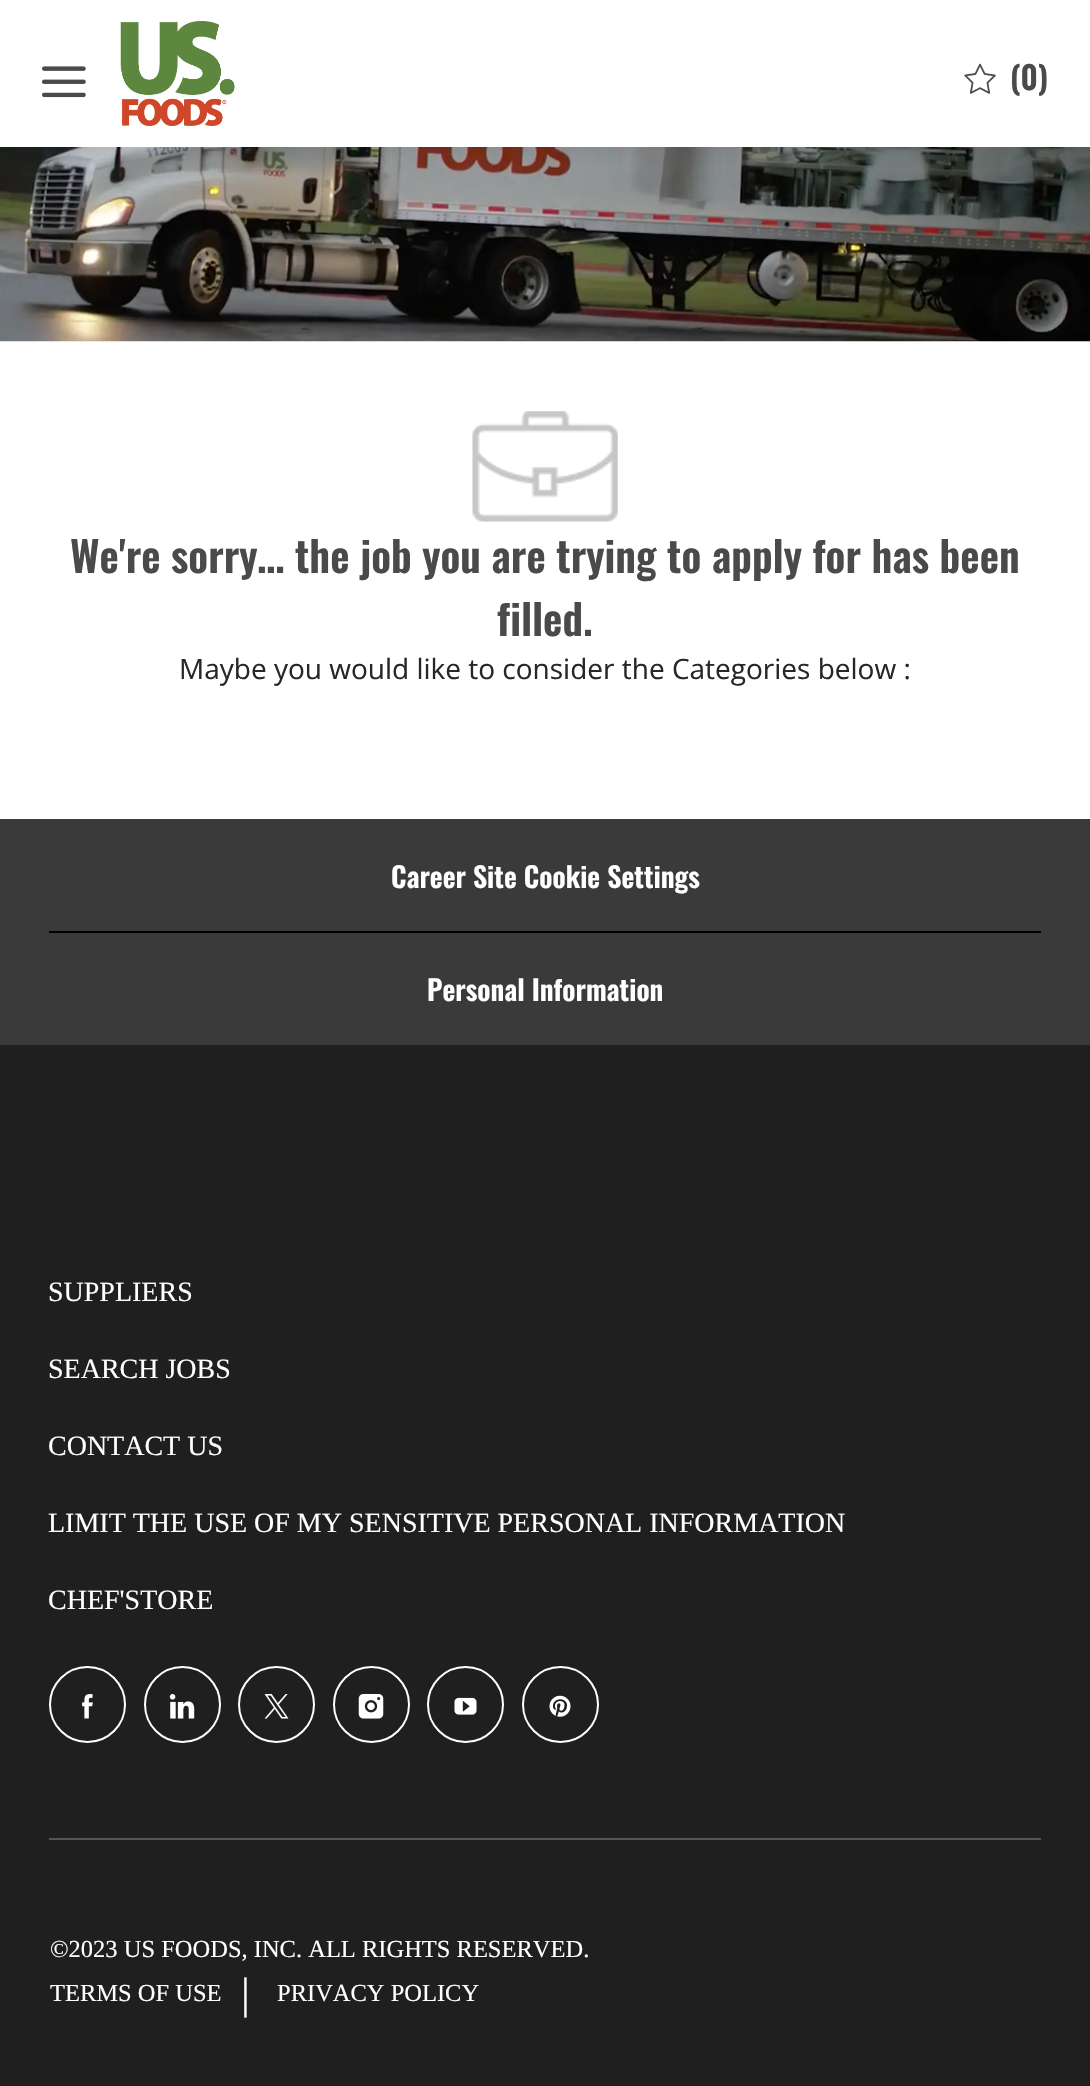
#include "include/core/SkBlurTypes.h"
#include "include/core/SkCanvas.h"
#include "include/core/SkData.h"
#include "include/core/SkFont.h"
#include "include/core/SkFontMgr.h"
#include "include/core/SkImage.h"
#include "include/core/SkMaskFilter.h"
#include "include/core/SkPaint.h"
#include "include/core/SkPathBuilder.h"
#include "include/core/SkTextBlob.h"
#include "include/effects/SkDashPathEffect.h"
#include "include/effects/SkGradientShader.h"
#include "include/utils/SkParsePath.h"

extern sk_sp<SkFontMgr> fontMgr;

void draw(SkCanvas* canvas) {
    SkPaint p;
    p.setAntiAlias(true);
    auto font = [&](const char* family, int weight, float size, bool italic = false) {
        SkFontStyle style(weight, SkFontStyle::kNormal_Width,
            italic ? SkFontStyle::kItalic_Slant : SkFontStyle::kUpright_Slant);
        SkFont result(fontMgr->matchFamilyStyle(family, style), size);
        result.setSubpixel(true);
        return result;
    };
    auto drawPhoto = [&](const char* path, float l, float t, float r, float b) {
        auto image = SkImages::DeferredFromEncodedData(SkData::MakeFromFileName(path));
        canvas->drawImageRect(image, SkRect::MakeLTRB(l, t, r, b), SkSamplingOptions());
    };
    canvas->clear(0xFFFFFFFF);
    drawPhoto("media/4.png", 0, 147, 1090, 342);
    p.setColor(0x1422242B);
    p.setMaskFilter(SkMaskFilter::MakeBlur(kNormal_SkBlurStyle, 7));
    canvas->drawRect(SkRect::MakeLTRB(-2, 5, 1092, 156), p);
    p.setMaskFilter(nullptr);
    p.setColor(0xFFFFFFFF);
    canvas->drawRect(SkRect::MakeLTRB(0, 0, 1090, 147), p);
    drawPhoto("media/1.png", 42, 66, 86, 98);
    drawPhoto("media/2.png", 120, 21, 235, 126);
    drawPhoto("media/3.png", 964, 63, 996, 94);
    auto font1 = font("Oswald", 600, 32);
    p.setColor(0xFF4A4A4A);
    canvas->drawString("(0)", 1010, 90, font1, p);
    drawPhoto("media/5.png", 472, 411, 618, 522);
    auto font2 = font("Oswald", 600, 42);
    canvas->drawString("We're sorry… the job you are trying to apply for has been", 70, 573, font2, p);
    canvas->drawString("filled.", 497, 636, font2, p);
    auto font3 = font("Open Sans", 400, 28);
    p.setColor(0xFF272727);
    canvas->drawString("Maybe you would like to consider the Categories below :", 179, 679, font3, p);
    p.setColor(0xFF1F1F1F);
    canvas->drawRect(SkRect::MakeLTRB(0, 1045, 1090, 2086), p);
    p.setColor(0xFF3A3A3A);
    canvas->drawRect(SkRect::MakeLTRB(0, 819, 1090, 1045), p);
    auto font4 = font("Oswald", 600, 28);
    p.setColor(0xFFFFFFFF);
    canvas->drawString("Career Site Cookie Settings", 391, 888, font4, p);
    p.setColor(0xFF000000);
    canvas->drawRect(SkRect::MakeLTRB(49, 931, 1041, 933), p);
    p.setColor(0xFFFFFFFF);
    canvas->drawString("Personal Information", 427, 1001, font4, p);
    auto font5 = font("Liberation Serif", 400, 28);
    {
        const struct { const char* s; float x, y; } items[] = {
            {"SUPPLIERS", 48, 1301},
            {"SEARCH JOBS", 48, 1378},
            {"CONTACT US", 48, 1455},
            {"LIMIT THE USE OF MY SENSITIVE PERSONAL INFORMATION", 48, 1532},
            {"CHEF'STORE", 48, 1609},
        };
        for (auto [s, x, y] : items) {
            canvas->drawString(s, x, y, font5, p);
        }
    }
    p.setStyle(SkPaint::kStroke_Style);
    p.setStrokeWidth(2);
    canvas->drawCircle(87.5f, 1704.5f, 37.5f, p);
    drawPhoto("media/6.png", 82, 1694, 93, 1719);
    canvas->drawCircle(182.5f, 1704.5f, 37.5f, p);
    drawPhoto("media/7.png", 169, 1694, 195, 1719);
    canvas->drawCircle(276.5f, 1704.5f, 37.5f, p);
    drawPhoto("media/8.png", 264, 1694, 289, 1719);
    canvas->drawCircle(371.5f, 1704.5f, 37.5f, p);
    drawPhoto("media/9.png", 358, 1694, 384, 1719);
    canvas->drawCircle(465.5f, 1704.5f, 37.5f, p);
    drawPhoto("media/10.png", 454, 1697, 477, 1715);
    canvas->drawCircle(560.5f, 1704.5f, 37.5f, p);
    drawPhoto("media/11.png", 549, 1695, 571, 1717);
    p.setStyle(SkPaint::kFill_Style);
    p.setColor(0xFF555555);
    canvas->drawRect(SkRect::MakeLTRB(49, 1838, 1041, 1840), p);
    auto font6 = font("Liberation Serif", 400, 24.5f);
    p.setColor(0xFFFFFFFF);
    canvas->drawString("©2023 US FOODS, INC. ALL RIGHTS RESERVED.", 50, 1957, font6, p);
    canvas->drawString("TERMS OF USE", 50, 2001, font6, p);
    auto font7 = font("Liberation Serif", 400, 44);
    canvas->drawString("|", 241, 2008, font7, p);
    canvas->drawString("PRIVACY POLICY", 277, 2001, font6, p);
}
